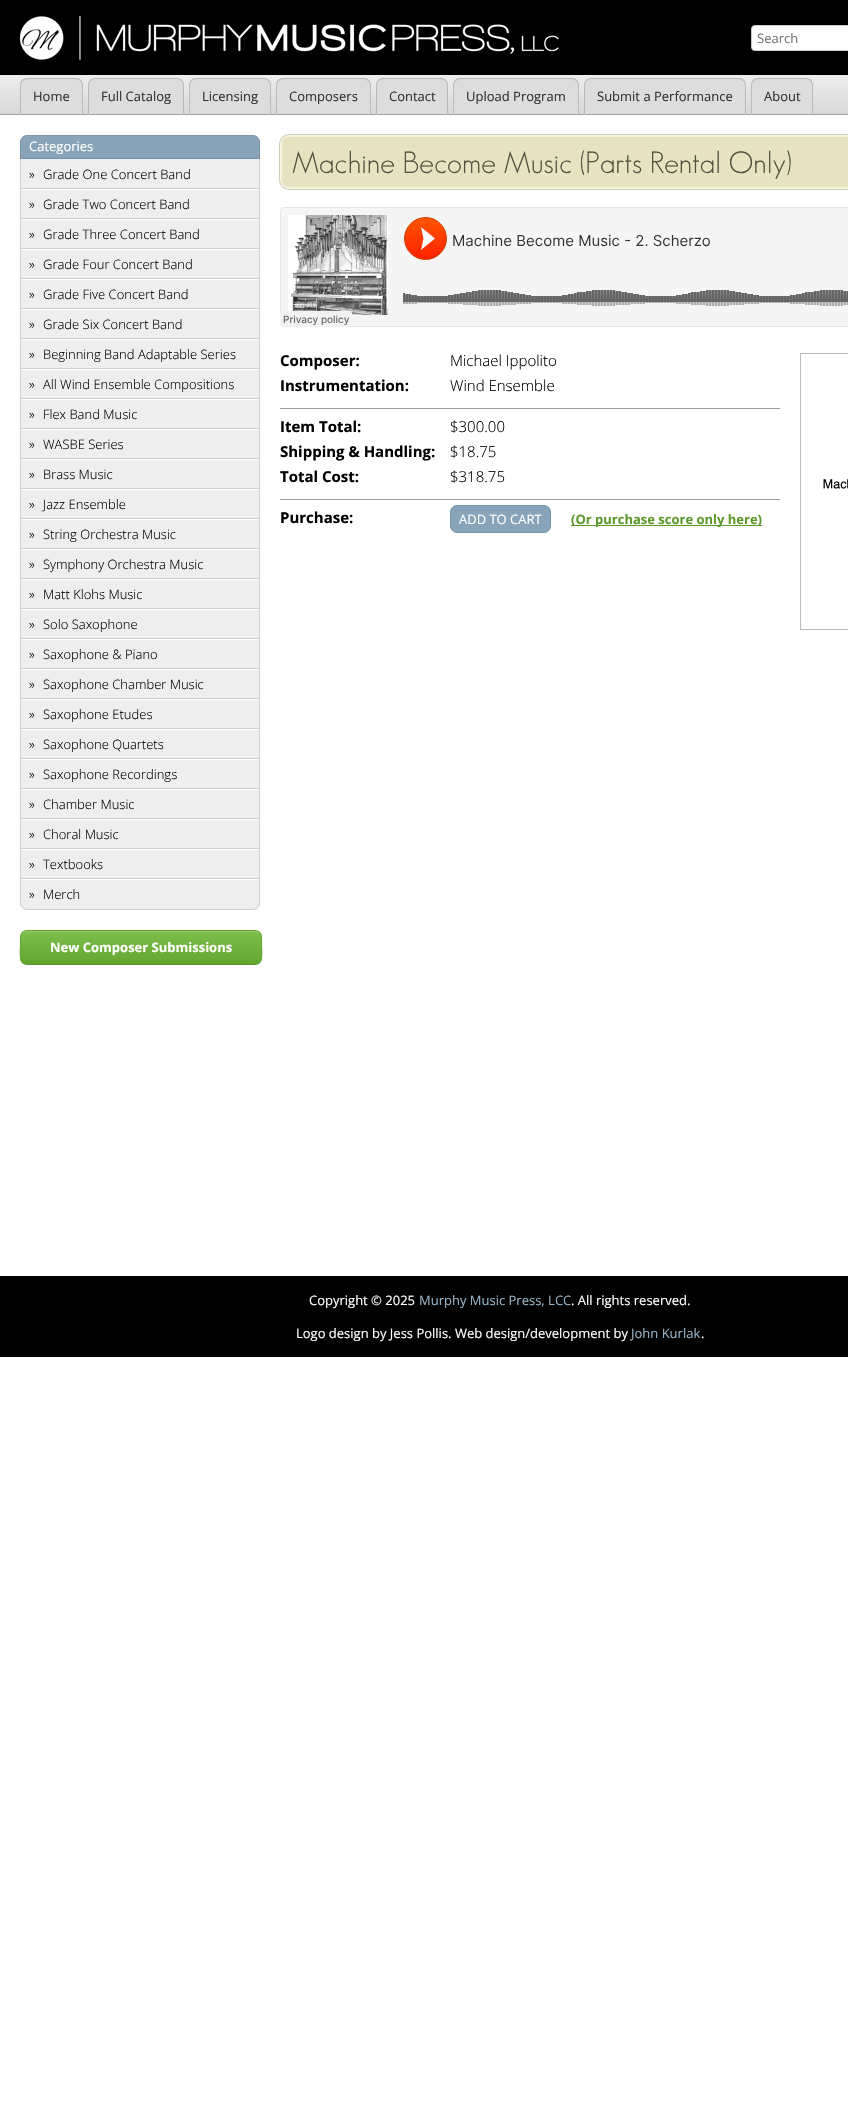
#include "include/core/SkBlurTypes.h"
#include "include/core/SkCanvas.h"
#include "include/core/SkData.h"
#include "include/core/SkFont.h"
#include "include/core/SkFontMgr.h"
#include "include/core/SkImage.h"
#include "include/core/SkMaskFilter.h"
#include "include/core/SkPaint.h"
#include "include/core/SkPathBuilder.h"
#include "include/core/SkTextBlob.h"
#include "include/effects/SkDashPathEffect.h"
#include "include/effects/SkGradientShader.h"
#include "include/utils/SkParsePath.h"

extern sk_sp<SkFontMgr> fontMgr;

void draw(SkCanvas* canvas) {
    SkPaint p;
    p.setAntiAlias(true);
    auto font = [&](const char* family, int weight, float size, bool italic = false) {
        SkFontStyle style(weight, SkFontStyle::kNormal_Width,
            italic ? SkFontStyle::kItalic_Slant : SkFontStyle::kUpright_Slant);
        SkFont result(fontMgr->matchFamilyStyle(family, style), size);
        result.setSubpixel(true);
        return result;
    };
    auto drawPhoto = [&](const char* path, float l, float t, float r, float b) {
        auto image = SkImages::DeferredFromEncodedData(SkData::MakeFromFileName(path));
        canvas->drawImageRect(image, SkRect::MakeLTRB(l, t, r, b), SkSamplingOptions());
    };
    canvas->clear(0xFFFFFFFF);
    p.setColor(0xFF000000);
    canvas->drawRect(SkRect::MakeLTRB(0, 0, 848, 75), p);
    drawPhoto("media/1.png", 20, 16, 559, 60);
    p.setColor(0xFFFFFFFF);
    canvas->drawRoundRect(SkRect::MakeLTRB(751.5f, 25.5f, 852.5f, 50.5f), 3.5f, 3.5f, p);
    p.setStyle(SkPaint::kStroke_Style);
    p.setStrokeWidth(1);
    p.setColor(0xFFCCCCCC);
    canvas->drawRoundRect(SkRect::MakeLTRB(751.5f, 25.5f, 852.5f, 50.5f), 3.5f, 3.5f, p);
    auto font1 = font("Open Sans", 400, 13);
    p.setStyle(SkPaint::kFill_Style);
    p.setColor(0xFF757575);
    canvas->drawString("Search", 757, 43, font1, p);
    {
        const SkColor colors[] = {0xFFEDEDED, 0xFFD8D8D8};
        const float stops[] = {0, 1};
        const SkPoint ends[] = {{480, 75}, {480, 114}};
        p.setShader(SkGradientShader::MakeLinear(ends, colors, stops, 2, SkTileMode::kClamp));
        p.setAlpha(255);
    }
    canvas->drawRect(SkRect::MakeLTRB(0, 75, 848, 114), p);
    p.setShader(nullptr);
    p.setColor(0xFFA1A1A1);
    canvas->drawRect(SkRect::MakeLTRB(0, 114, 848, 115), p);
    p.setColor(0xFFDDDDDD);
    canvas->drawPath(SkPathBuilder().moveTo(27, 78).lineTo(76, 78).cubicTo(80, 78, 83, 81, 83, 85).lineTo(83, 115).lineTo(20, 115).lineTo(20, 85).cubicTo(20, 81, 23, 78, 27, 78).close().detach(), p);
    p.setColor(0xFFBBBBBB);
    canvas->drawPath(SkPathBuilder().moveTo(27, 78).cubicTo(25, 78, 23, 79, 22, 80).lineTo(23, 81).cubicTo(24, 80, 26, 79, 27, 79).lineTo(76, 79).cubicTo(78, 79, 79, 80, 80, 81).lineTo(81, 80).cubicTo(80, 79, 78, 78, 76, 78).close().detach(), p);
    canvas->drawPath(SkPathBuilder().moveTo(83, 115).lineTo(83, 85).cubicTo(83, 83, 82, 81, 81, 80).lineTo(80, 81).cubicTo(81, 82, 82, 83.5f, 82, 85).lineTo(82, 114).close().detach(), p);
    p.setColor(0xFFA1A1A1);
    canvas->drawPath(SkPathBuilder().moveTo(83, 115).lineTo(82, 114).lineTo(21, 114).lineTo(20, 115).close().detach(), p);
    p.setColor(0xFFBBBBBB);
    canvas->drawPath(SkPathBuilder().moveTo(20, 115).lineTo(21, 114).lineTo(21, 85).cubicTo(21, 83.5f, 22, 82, 23, 81).lineTo(22, 80).cubicTo(21, 81, 20, 83, 20, 85).close().detach(), p);
    p.setColor(0xFF333333);
    canvas->drawString("Home", 33, 101, font1, p);
    p.setColor(0xFFDDDDDD);
    canvas->drawPath(SkPathBuilder().moveTo(95, 78).lineTo(177, 78).cubicTo(181, 78, 184, 81, 184, 85).lineTo(184, 115).lineTo(88, 115).lineTo(88, 85).cubicTo(88, 81, 91, 78, 95, 78).close().detach(), p);
    p.setColor(0xFFBBBBBB);
    canvas->drawPath(SkPathBuilder().moveTo(95, 78).cubicTo(93, 78, 91, 79, 90, 80).lineTo(91, 81).lineTo(94, 79).lineTo(178, 79).lineTo(181, 81).lineTo(182, 80).cubicTo(181, 79, 179, 78, 177, 78).close().detach(), p);
    canvas->drawPath(SkPathBuilder().moveTo(184, 115).lineTo(184, 85).cubicTo(184, 83, 183, 81, 182, 80).lineTo(181, 81).cubicTo(182, 82, 183, 83.5f, 183, 85).lineTo(183, 114).close().detach(), p);
    p.setColor(0xFFA1A1A1);
    canvas->drawPath(SkPathBuilder().moveTo(184, 115).lineTo(183, 114).lineTo(89, 114).lineTo(88, 115).close().detach(), p);
    p.setColor(0xFFBBBBBB);
    canvas->drawPath(SkPathBuilder().moveTo(88, 115).lineTo(89, 114).lineTo(89, 85).cubicTo(89, 83.5f, 90, 82, 91, 81).lineTo(90, 80).cubicTo(89, 81, 88, 83, 88, 85).close().detach(), p);
    p.setColor(0xFF333333);
    canvas->drawString("Full Catalog", 101, 101, font1, p);
    p.setColor(0xFFDDDDDD);
    canvas->drawPath(SkPathBuilder().moveTo(196, 78).lineTo(264, 78).cubicTo(268, 78, 271, 81, 271, 85).lineTo(271, 115).lineTo(189, 115).lineTo(189, 85).cubicTo(189, 81, 192, 78, 196, 78).close().detach(), p);
    p.setColor(0xFFBBBBBB);
    canvas->drawPath(SkPathBuilder().moveTo(196, 78).cubicTo(194, 78, 192, 79, 191, 80).lineTo(192, 81).cubicTo(193, 80, 194, 79, 196, 79).lineTo(264, 79).cubicTo(266, 79, 267, 80, 268, 81).lineTo(269, 80).cubicTo(268, 79, 266, 78, 264, 78).close().detach(), p);
    canvas->drawPath(SkPathBuilder().moveTo(271, 115).lineTo(271, 85).cubicTo(271, 83, 270, 81, 269, 80).lineTo(268, 81).cubicTo(269, 82, 270, 83.5f, 270, 85).lineTo(270, 114).close().detach(), p);
    p.setColor(0xFFA1A1A1);
    canvas->drawPath(SkPathBuilder().moveTo(271, 115).lineTo(270, 114).lineTo(190, 114).lineTo(189, 115).close().detach(), p);
    p.setColor(0xFFBBBBBB);
    canvas->drawPath(SkPathBuilder().moveTo(189, 115).lineTo(190, 114).lineTo(190, 85).cubicTo(190, 83.5f, 191, 82, 192, 81).lineTo(191, 80).cubicTo(190, 81, 189, 83, 189, 85).close().detach(), p);
    p.setColor(0xFF333333);
    canvas->drawString("Licensing", 202, 101, font1, p);
    p.setColor(0xFFDDDDDD);
    canvas->drawPath(SkPathBuilder().moveTo(283, 78).lineTo(364, 78).cubicTo(368, 78, 371, 81, 371, 85).lineTo(371, 115).lineTo(276, 115).lineTo(276, 85).cubicTo(276, 81, 279, 78, 283, 78).close().detach(), p);
    p.setColor(0xFFBBBBBB);
    canvas->drawPath(SkPathBuilder().moveTo(283, 78).cubicTo(281, 78, 279, 79, 278, 80).lineTo(279, 81).lineTo(282, 79).lineTo(365, 79).lineTo(368, 81).lineTo(369, 80).cubicTo(368, 79, 366, 78, 364, 78).close().detach(), p);
    canvas->drawPath(SkPathBuilder().moveTo(371, 115).lineTo(371, 85).cubicTo(371, 83, 370, 81, 369, 80).lineTo(368, 81).cubicTo(369, 82, 370, 83.5f, 370, 85).lineTo(370, 114).close().detach(), p);
    p.setColor(0xFFA1A1A1);
    canvas->drawPath(SkPathBuilder().moveTo(371, 115).lineTo(370, 114).lineTo(277, 114).lineTo(276, 115).close().detach(), p);
    p.setColor(0xFFBBBBBB);
    canvas->drawPath(SkPathBuilder().moveTo(276, 115).lineTo(277, 114).lineTo(277, 85).cubicTo(277, 83.5f, 278, 82, 279, 81).lineTo(278, 80).cubicTo(277, 81, 276, 83, 276, 85).close().detach(), p);
    p.setColor(0xFF333333);
    canvas->drawString("Composers", 289, 101, font1, p);
    p.setColor(0xFFDDDDDD);
    canvas->drawPath(SkPathBuilder().moveTo(383, 78).lineTo(441, 78).cubicTo(445, 78, 448, 81, 448, 85).lineTo(448, 115).lineTo(376, 115).lineTo(376, 85).cubicTo(376, 81, 379, 78, 383, 78).close().detach(), p);
    p.setColor(0xFFBBBBBB);
    canvas->drawPath(SkPathBuilder().moveTo(383, 78).cubicTo(381, 78, 379, 79, 378, 80).lineTo(379, 81).cubicTo(380, 80, 382, 79, 383, 79).lineTo(441, 79).cubicTo(442, 79, 444, 80, 445, 81).lineTo(446, 80).cubicTo(445, 79, 443, 78, 441, 78).close().detach(), p);
    canvas->drawPath(SkPathBuilder().moveTo(448, 115).lineTo(448, 85).cubicTo(448, 83, 447, 81, 446, 80).lineTo(445, 81).cubicTo(446, 82, 447, 83.5f, 447, 85).lineTo(447, 114).close().detach(), p);
    p.setColor(0xFFA1A1A1);
    canvas->drawPath(SkPathBuilder().moveTo(448, 115).lineTo(447, 114).lineTo(377, 114).lineTo(376, 115).close().detach(), p);
    p.setColor(0xFFBBBBBB);
    canvas->drawPath(SkPathBuilder().moveTo(376, 115).lineTo(377, 114).lineTo(377, 85).cubicTo(377, 83.5f, 378, 82, 379, 81).lineTo(378, 80).cubicTo(377, 81, 376, 83, 376, 85).close().detach(), p);
    p.setColor(0xFF333333);
    canvas->drawString("Contact", 389, 101, font1, p);
    p.setColor(0xFFDDDDDD);
    canvas->drawPath(SkPathBuilder().moveTo(460, 78).lineTo(572, 78).cubicTo(576, 78, 579, 81, 579, 85).lineTo(579, 115).lineTo(453, 115).lineTo(453, 85).cubicTo(453, 81, 456, 78, 460, 78).close().detach(), p);
    p.setColor(0xFFBBBBBB);
    canvas->drawPath(SkPathBuilder().moveTo(460, 78).cubicTo(458, 78, 456, 79, 455, 80).lineTo(456, 81).lineTo(459, 79).lineTo(573, 79).lineTo(576, 81).lineTo(577, 80).cubicTo(576, 79, 574, 78, 572, 78).close().detach(), p);
    canvas->drawPath(SkPathBuilder().moveTo(579, 115).lineTo(579, 85).cubicTo(579, 83, 578, 81, 577, 80).lineTo(576, 81).cubicTo(577, 82, 578, 83.5f, 578, 85).lineTo(578, 114).close().detach(), p);
    p.setColor(0xFFA1A1A1);
    canvas->drawPath(SkPathBuilder().moveTo(579, 115).lineTo(578, 114).lineTo(454, 114).lineTo(453, 115).close().detach(), p);
    p.setColor(0xFFBBBBBB);
    canvas->drawPath(SkPathBuilder().moveTo(453, 115).lineTo(454, 114).lineTo(454, 85).cubicTo(454, 83.5f, 455, 82, 456, 81).lineTo(455, 80).cubicTo(454, 81, 453, 83, 453, 85).close().detach(), p);
    p.setColor(0xFF333333);
    canvas->drawString("Upload Program", 466, 101, font1, p);
    p.setColor(0xFFDDDDDD);
    canvas->drawPath(SkPathBuilder().moveTo(591, 78).lineTo(739, 78).cubicTo(743, 78, 746, 81, 746, 85).lineTo(746, 115).lineTo(584, 115).lineTo(584, 85).cubicTo(584, 81, 587, 78, 591, 78).close().detach(), p);
    p.setColor(0xFFBBBBBB);
    canvas->drawPath(SkPathBuilder().moveTo(591, 78).cubicTo(589, 78, 587, 79, 586, 80).lineTo(587, 81).lineTo(590, 79).lineTo(740, 79).lineTo(743, 81).lineTo(744, 80).cubicTo(743, 79, 741, 78, 739, 78).close().detach(), p);
    canvas->drawPath(SkPathBuilder().moveTo(746, 115).lineTo(746, 85).cubicTo(746, 83, 745, 81, 744, 80).lineTo(743, 81).cubicTo(744, 82, 745, 83.5f, 745, 85).lineTo(745, 114).close().detach(), p);
    p.setColor(0xFFA1A1A1);
    canvas->drawPath(SkPathBuilder().moveTo(746, 115).lineTo(745, 114).lineTo(585, 114).lineTo(584, 115).close().detach(), p);
    p.setColor(0xFFBBBBBB);
    canvas->drawPath(SkPathBuilder().moveTo(584, 115).lineTo(585, 114).lineTo(585, 85).cubicTo(585, 83.5f, 586, 82, 587, 81).lineTo(586, 80).cubicTo(585, 81, 584, 83, 584, 85).close().detach(), p);
    p.setColor(0xFF333333);
    canvas->drawString("Submit a Performance", 597, 101, font1, p);
    p.setColor(0xFFDDDDDD);
    canvas->drawPath(SkPathBuilder().moveTo(758, 78).lineTo(806, 78).cubicTo(810, 78, 813, 81, 813, 85).lineTo(813, 115).lineTo(751, 115).lineTo(751, 85).cubicTo(751, 81, 754, 78, 758, 78).close().detach(), p);
    p.setColor(0xFFBBBBBB);
    canvas->drawPath(SkPathBuilder().moveTo(758, 78).cubicTo(756, 78, 754, 79, 753, 80).lineTo(754, 81).cubicTo(755, 80, 756, 79, 758, 79).lineTo(806, 79).cubicTo(808, 79, 809, 80, 810, 81).lineTo(811, 80).cubicTo(810, 79, 808, 78, 806, 78).close().detach(), p);
    canvas->drawPath(SkPathBuilder().moveTo(813, 115).lineTo(813, 85).cubicTo(813, 83, 812, 81, 811, 80).lineTo(810, 81).cubicTo(811, 82, 812, 83.5f, 812, 85).lineTo(812, 114).close().detach(), p);
    p.setColor(0xFFA1A1A1);
    canvas->drawPath(SkPathBuilder().moveTo(813, 115).lineTo(812, 114).lineTo(752, 114).lineTo(751, 115).close().detach(), p);
    p.setColor(0xFFBBBBBB);
    canvas->drawPath(SkPathBuilder().moveTo(751, 115).lineTo(752, 114).lineTo(752, 85).cubicTo(752, 83.5f, 753, 82, 754, 81).lineTo(753, 80).cubicTo(752, 81, 751, 83, 751, 85).close().detach(), p);
    p.setColor(0xFF333333);
    canvas->drawString("About", 764, 101, font1, p);
    p.setColor(0xFFEEEEEE);
    canvas->drawRoundRect(SkRect::MakeLTRB(20.5f, 135.5f, 259.5f, 909.5f), 6.5f, 6.5f, p);
    p.setStyle(SkPaint::kStroke_Style);
    p.setColor(0xFFCCCCCC);
    canvas->drawRoundRect(SkRect::MakeLTRB(20.5f, 135.5f, 259.5f, 909.5f), 6.5f, 6.5f, p);
    p.setStyle(SkPaint::kFill_Style);
    p.setColor(0xFF89A4B8);
    canvas->drawPath(SkPathBuilder().moveTo(27, 135.5f).lineTo(253, 135.5f).cubicTo(256.5f, 135.5f, 259.5f, 138.5f, 259.5f, 142).lineTo(259.5f, 158.5f).lineTo(20.5f, 158.5f).lineTo(20.5f, 142).cubicTo(20.5f, 138.5f, 23.5f, 135.5f, 27, 135.5f).close().detach(), p);
    p.setStyle(SkPaint::kStroke_Style);
    p.setColor(0xFF7595AC);
    canvas->drawPath(SkPathBuilder().moveTo(27, 135.5f).lineTo(253, 135.5f).cubicTo(256.5f, 135.5f, 259.5f, 138.5f, 259.5f, 142).lineTo(259.5f, 158.5f).lineTo(20.5f, 158.5f).lineTo(20.5f, 142).cubicTo(20.5f, 138.5f, 23.5f, 135.5f, 27, 135.5f).close().detach(), p);
    p.setStyle(SkPaint::kFill_Style);
    p.setColor(0xFFFFFFFF);
    canvas->drawString("Categories", 29, 151, font1, p);
    p.setColor(0xFFCCCCCC);
    canvas->drawRect(SkRect::MakeLTRB(21, 188, 259, 189), p);
    auto font2 = font("Open Sans", 300, 13);
    p.setColor(0xFF000000);
    canvas->drawString("»", 29, 179, font2, p);
    canvas->drawString("Grade One Concert Band", 43, 179, font2, p);
    p.setColor(0xFFFFFFFF);
    canvas->drawRect(SkRect::MakeLTRB(21, 189, 259, 190), p);
    p.setColor(0xFFCCCCCC);
    canvas->drawRect(SkRect::MakeLTRB(21, 218, 259, 219), p);
    p.setColor(0xFF000000);
    canvas->drawString("»", 29, 209, font2, p);
    canvas->drawString("Grade Two Concert Band", 43, 209, font2, p);
    p.setColor(0xFFFFFFFF);
    canvas->drawRect(SkRect::MakeLTRB(21, 219, 259, 220), p);
    p.setColor(0xFFCCCCCC);
    canvas->drawRect(SkRect::MakeLTRB(21, 248, 259, 249), p);
    p.setColor(0xFF000000);
    canvas->drawString("»", 29, 239, font2, p);
    canvas->drawString("Grade Three Concert Band", 43, 239, font2, p);
    p.setColor(0xFFFFFFFF);
    canvas->drawRect(SkRect::MakeLTRB(21, 249, 259, 250), p);
    p.setColor(0xFFCCCCCC);
    canvas->drawRect(SkRect::MakeLTRB(21, 278, 259, 279), p);
    p.setColor(0xFF000000);
    canvas->drawString("»", 29, 269, font2, p);
    canvas->drawString("Grade Four Concert Band", 43, 269, font2, p);
    p.setColor(0xFFFFFFFF);
    canvas->drawRect(SkRect::MakeLTRB(21, 279, 259, 280), p);
    p.setColor(0xFFCCCCCC);
    canvas->drawRect(SkRect::MakeLTRB(21, 308, 259, 309), p);
    p.setColor(0xFF000000);
    canvas->drawString("»", 29, 299, font2, p);
    canvas->drawString("Grade Five Concert Band", 43, 299, font2, p);
    p.setColor(0xFFFFFFFF);
    canvas->drawRect(SkRect::MakeLTRB(21, 309, 259, 310), p);
    p.setColor(0xFFCCCCCC);
    canvas->drawRect(SkRect::MakeLTRB(21, 338, 259, 339), p);
    p.setColor(0xFF000000);
    canvas->drawString("»", 29, 329, font2, p);
    canvas->drawString("Grade Six Concert Band", 43, 329, font2, p);
    p.setColor(0xFFFFFFFF);
    canvas->drawRect(SkRect::MakeLTRB(21, 339, 259, 340), p);
    p.setColor(0xFFCCCCCC);
    canvas->drawRect(SkRect::MakeLTRB(21, 368, 259, 369), p);
    p.setColor(0xFF000000);
    canvas->drawString("»", 29, 359, font2, p);
    canvas->drawString("Beginning Band Adaptable Series", 43, 359, font2, p);
    p.setColor(0xFFFFFFFF);
    canvas->drawRect(SkRect::MakeLTRB(21, 369, 259, 370), p);
    p.setColor(0xFFCCCCCC);
    canvas->drawRect(SkRect::MakeLTRB(21, 398, 259, 399), p);
    p.setColor(0xFF000000);
    canvas->drawString("»", 29, 389, font2, p);
    canvas->drawString("All Wind Ensemble Compositions", 43, 389, font2, p);
    p.setColor(0xFFFFFFFF);
    canvas->drawRect(SkRect::MakeLTRB(21, 399, 259, 400), p);
    p.setColor(0xFFCCCCCC);
    canvas->drawRect(SkRect::MakeLTRB(21, 428, 259, 429), p);
    p.setColor(0xFF000000);
    canvas->drawString("»", 29, 419, font2, p);
    canvas->drawString("Flex Band Music", 43, 419, font2, p);
    p.setColor(0xFFFFFFFF);
    canvas->drawRect(SkRect::MakeLTRB(21, 429, 259, 430), p);
    p.setColor(0xFFCCCCCC);
    canvas->drawRect(SkRect::MakeLTRB(21, 458, 259, 459), p);
    p.setColor(0xFF000000);
    canvas->drawString("»", 29, 449, font2, p);
    canvas->drawString("WASBE Series", 43, 449, font2, p);
    p.setColor(0xFFFFFFFF);
    canvas->drawRect(SkRect::MakeLTRB(21, 459, 259, 460), p);
    p.setColor(0xFFCCCCCC);
    canvas->drawRect(SkRect::MakeLTRB(21, 488, 259, 489), p);
    p.setColor(0xFF000000);
    canvas->drawString("»", 29, 479, font2, p);
    canvas->drawString("Brass Music", 43, 479, font2, p);
    p.setColor(0xFFFFFFFF);
    canvas->drawRect(SkRect::MakeLTRB(21, 489, 259, 490), p);
    p.setColor(0xFFCCCCCC);
    canvas->drawRect(SkRect::MakeLTRB(21, 518, 259, 519), p);
    p.setColor(0xFF000000);
    canvas->drawString("»", 29, 509, font2, p);
    canvas->drawString("Jazz Ensemble", 43, 509, font2, p);
    p.setColor(0xFFFFFFFF);
    canvas->drawRect(SkRect::MakeLTRB(21, 519, 259, 520), p);
    p.setColor(0xFFCCCCCC);
    canvas->drawRect(SkRect::MakeLTRB(21, 548, 259, 549), p);
    p.setColor(0xFF000000);
    canvas->drawString("»", 29, 539, font2, p);
    canvas->drawString("String Orchestra Music", 43, 539, font2, p);
    p.setColor(0xFFFFFFFF);
    canvas->drawRect(SkRect::MakeLTRB(21, 549, 259, 550), p);
    p.setColor(0xFFCCCCCC);
    canvas->drawRect(SkRect::MakeLTRB(21, 578, 259, 579), p);
    p.setColor(0xFF000000);
    canvas->drawString("»", 29, 569, font2, p);
    canvas->drawString("Symphony Orchestra Music", 43, 569, font2, p);
    p.setColor(0xFFFFFFFF);
    canvas->drawRect(SkRect::MakeLTRB(21, 579, 259, 580), p);
    p.setColor(0xFFCCCCCC);
    canvas->drawRect(SkRect::MakeLTRB(21, 608, 259, 609), p);
    p.setColor(0xFF000000);
    canvas->drawString("»", 29, 599, font2, p);
    canvas->drawString("Matt Klohs Music", 43, 599, font2, p);
    p.setColor(0xFFFFFFFF);
    canvas->drawRect(SkRect::MakeLTRB(21, 609, 259, 610), p);
    p.setColor(0xFFCCCCCC);
    canvas->drawRect(SkRect::MakeLTRB(21, 638, 259, 639), p);
    p.setColor(0xFF000000);
    canvas->drawString("»", 29, 629, font2, p);
    canvas->drawString("Solo Saxophone", 43, 629, font2, p);
    p.setColor(0xFFFFFFFF);
    canvas->drawRect(SkRect::MakeLTRB(21, 639, 259, 640), p);
    p.setColor(0xFFCCCCCC);
    canvas->drawRect(SkRect::MakeLTRB(21, 668, 259, 669), p);
    p.setColor(0xFF000000);
    canvas->drawString("»", 29, 659, font2, p);
    canvas->drawString("Saxophone & Piano", 43, 659, font2, p);
    p.setColor(0xFFFFFFFF);
    canvas->drawRect(SkRect::MakeLTRB(21, 669, 259, 670), p);
    p.setColor(0xFFCCCCCC);
    canvas->drawRect(SkRect::MakeLTRB(21, 698, 259, 699), p);
    p.setColor(0xFF000000);
    canvas->drawString("»", 29, 689, font2, p);
    canvas->drawString("Saxophone Chamber Music", 43, 689, font2, p);
    p.setColor(0xFFFFFFFF);
    canvas->drawRect(SkRect::MakeLTRB(21, 699, 259, 700), p);
    p.setColor(0xFFCCCCCC);
    canvas->drawRect(SkRect::MakeLTRB(21, 728, 259, 729), p);
    p.setColor(0xFF000000);
    canvas->drawString("»", 29, 719, font2, p);
    canvas->drawString("Saxophone Etudes", 43, 719, font2, p);
    p.setColor(0xFFFFFFFF);
    canvas->drawRect(SkRect::MakeLTRB(21, 729, 259, 730), p);
    p.setColor(0xFFCCCCCC);
    canvas->drawRect(SkRect::MakeLTRB(21, 758, 259, 759), p);
    p.setColor(0xFF000000);
    canvas->drawString("»", 29, 749, font2, p);
    canvas->drawString("Saxophone Quartets", 43, 749, font2, p);
    p.setColor(0xFFFFFFFF);
    canvas->drawRect(SkRect::MakeLTRB(21, 759, 259, 760), p);
    p.setColor(0xFFCCCCCC);
    canvas->drawRect(SkRect::MakeLTRB(21, 788, 259, 789), p);
    p.setColor(0xFF000000);
    canvas->drawString("»", 29, 779, font2, p);
    canvas->drawString("Saxophone Recordings", 43, 779, font2, p);
    p.setColor(0xFFFFFFFF);
    canvas->drawRect(SkRect::MakeLTRB(21, 789, 259, 790), p);
    p.setColor(0xFFCCCCCC);
    canvas->drawRect(SkRect::MakeLTRB(21, 818, 259, 819), p);
    p.setColor(0xFF000000);
    canvas->drawString("»", 29, 809, font2, p);
    canvas->drawString("Chamber Music", 43, 809, font2, p);
    p.setColor(0xFFFFFFFF);
    canvas->drawRect(SkRect::MakeLTRB(21, 819, 259, 820), p);
    p.setColor(0xFFCCCCCC);
    canvas->drawRect(SkRect::MakeLTRB(21, 848, 259, 849), p);
    p.setColor(0xFF000000);
    canvas->drawString("»", 29, 839, font2, p);
    canvas->drawString("Choral Music", 43, 839, font2, p);
    p.setColor(0xFFFFFFFF);
    canvas->drawRect(SkRect::MakeLTRB(21, 849, 259, 850), p);
    p.setColor(0xFFCCCCCC);
    canvas->drawRect(SkRect::MakeLTRB(21, 878, 259, 879), p);
    p.setColor(0xFF000000);
    canvas->drawString("»", 29, 869, font2, p);
    canvas->drawString("Textbooks", 43, 869, font2, p);
    p.setColor(0xFFFFFFFF);
    canvas->drawRect(SkRect::MakeLTRB(21, 879, 259, 880), p);
    p.setColor(0xFF000000);
    canvas->drawString("»", 29, 899, font2, p);
    canvas->drawString("Merch", 43, 899, font2, p);
    canvas->save();
    canvas->clipPath(SkPathBuilder().moveTo(27, 930).lineTo(255, 930).cubicTo(259, 930, 262, 933, 262, 937).lineTo(262, 958).cubicTo(262, 962, 259, 965, 255, 965).lineTo(27, 965).cubicTo(23, 965, 20, 962, 20, 958).lineTo(20, 937).cubicTo(20, 933, 23, 930, 27, 930).close().detach(), true);
    {
        const SkColor colors[] = {0xFF7FBF4D, 0xFF63A62F};
        const float stops[] = {0, 1};
        const SkPoint ends[] = {{141, 931}, {141, 964}};
        p.setShader(SkGradientShader::MakeLinear(ends, colors, stops, 2, SkTileMode::kClamp));
        p.setAlpha(255);
    }
    canvas->drawRect(SkRect::MakeLTRB(20, 931, 262, 964), p);
    canvas->restore();
    p.setShader(nullptr);
    p.setColor(0xFF96CA6D);
    canvas->drawPath(SkPathBuilder().moveTo(27, 932).lineTo(255, 932).cubicTo(258, 932, 261, 935, 261, 938).lineTo(261, 937).cubicTo(261, 934, 258, 931, 255, 931).lineTo(27, 931).cubicTo(24, 931, 21, 934, 21, 937).lineTo(21, 938).cubicTo(21, 935, 24, 932, 27, 932).close().detach(), p);
    p.setStyle(SkPaint::kStroke_Style);
    p.setColor(0xFF5B992B);
    canvas->drawPath(SkPathBuilder().moveTo(259.5f, 962.5f).cubicTo(258.5f, 964, 256.5f, 964.5f, 255, 964.5f).lineTo(27, 964.5f).cubicTo(25.5f, 964.5f, 23.5f, 964, 22.5f, 962.5f).detach(), p);
    p.setColor(0xFF63A62F);
    canvas->drawPath(SkPathBuilder().moveTo(22.5f, 962.5f).cubicTo(19, 959, 20.5f, 948.5f, 20.5f, 944).cubicTo(20.5f, 939, 19.5f, 930.5f, 27, 930.5f).lineTo(255, 930.5f).cubicTo(262.5f, 930.5f, 261.5f, 939, 261.5f, 944).cubicTo(261.5f, 948.5f, 263, 959, 259.5f, 962.5f).detach(), p);
    auto font3 = font("Open Sans", 700, 13);
    p.setStyle(SkPaint::kFill_Style);
    p.setColor(0xFFFFFFFF);
    canvas->drawString("New Composer Submissions", 50, 952, font3, p);
    p.setStyle(SkPaint::kStroke_Style);
    p.setStrokeWidth(3);
    p.setColor(0xFFCFD1BC);
    canvas->drawRoundRect(SkRect::MakeLTRB(280.5f, 135.5f, 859.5f, 188.5f), 8.5f, 8.5f, p);
    p.setStrokeWidth(2);
    p.setColor(0xFFF6F4DD);
    canvas->drawRoundRect(SkRect::MakeLTRB(281, 136, 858, 188), 8, 8, p);
    p.setStyle(SkPaint::kFill_Style);
    p.setColor(0xFFE7E3C0);
    canvas->drawRoundRect(SkRect::MakeLTRB(282, 137, 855, 187), 7, 7, p);
    auto font4 = font("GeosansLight", 300, 30);
    p.setColor(0xFF50523D);
    canvas->drawString("Machine Become Music (Parts Rental Only)", 292, 173, font4, p);
    drawPhoto("media/2.png", 280, 207, 848, 327);
    auto font5 = font("Open Sans", 700, 15);
    p.setColor(0xFF000000);
    canvas->drawString("Composer:", 280, 366, font5, p);
    auto font6 = font("Open Sans", 300, 15);
    canvas->drawString("Michael Ippolito", 450, 366, font6, p);
    p.setStyle(SkPaint::kStroke_Style);
    p.setStrokeWidth(1);
    p.setColor(0xFFBBBBBB);
    canvas->drawRect(SkRect::MakeLTRB(800.5f, 353.5f, 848.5f, 629.5f), p);
    drawPhoto("media/3.png", 823, 479, 848, 489);
    p.setStyle(SkPaint::kFill_Style);
    p.setColor(0xFF000000);
    canvas->drawString("Instrumentation:", 280, 391, font5, p);
    canvas->drawString("Wind Ensemble", 450, 391, font6, p);
    p.setColor(0xFF999999);
    canvas->drawRect(SkRect::MakeLTRB(280, 408, 780, 409), p);
    p.setColor(0xFF000000);
    canvas->drawString("Item Total:", 280, 432, font5, p);
    canvas->drawString("$300.00", 450, 432, font6, p);
    canvas->drawString("Shipping & Handling:", 280, 457, font5, p);
    canvas->drawString("$18.75", 450, 457, font6, p);
    canvas->drawString("Total Cost:", 280, 482, font5, p);
    canvas->drawString("$318.75", 450, 482, font6, p);
    p.setColor(0xFF999999);
    canvas->drawRect(SkRect::MakeLTRB(280, 499, 780, 500), p);
    p.setColor(0xFF000000);
    canvas->drawString("Purchase:", 280, 523, font5, p);
    p.setColor(0xFF89A4B8);
    canvas->drawRoundRect(SkRect::MakeLTRB(450.5f, 505.5f, 550.5f, 532.5f), 6.5f, 6.5f, p);
    p.setStyle(SkPaint::kStroke_Style);
    p.setColor(0xFF7595AC);
    canvas->drawRoundRect(SkRect::MakeLTRB(450.5f, 505.5f, 550.5f, 532.5f), 6.5f, 6.5f, p);
    p.setStyle(SkPaint::kFill_Style);
    p.setColor(0xFFFFFFFF);
    canvas->drawString("ADD TO CART", 459, 524, font1, p);
    p.setColor(0xFF5B992B);
    canvas->drawRect(SkRect::MakeLTRB(571, 525, 762, 526), p);
    canvas->drawString("(Or purchase score only here)", 571, 524, font3, p);
    p.setColor(0xFF000000);
    canvas->drawRect(SkRect::MakeLTRB(0, 1276, 848, 1357), p);
    p.setColor(0xFFFFFFFF);
    canvas->drawString("Copyright © 2025", 309, 1305, font1, p);
    p.setColor(0xFF99B4C8);
    canvas->drawString("Murphy Music Press, LCC", 419, 1305, font1, p);
    p.setColor(0xFFFFFFFF);
    canvas->drawString(". All rights reserved.", 571, 1305, font1, p);
    canvas->drawString("Logo design by Jess Pollis. Web design/development by", 296, 1338, font1, p);
    p.setColor(0xFF99B4C8);
    canvas->drawString("John Kurlak", 631, 1338, font1, p);
    p.setColor(0xFFFFFFFF);
    canvas->drawString(".", 701, 1338, font1, p);
}
